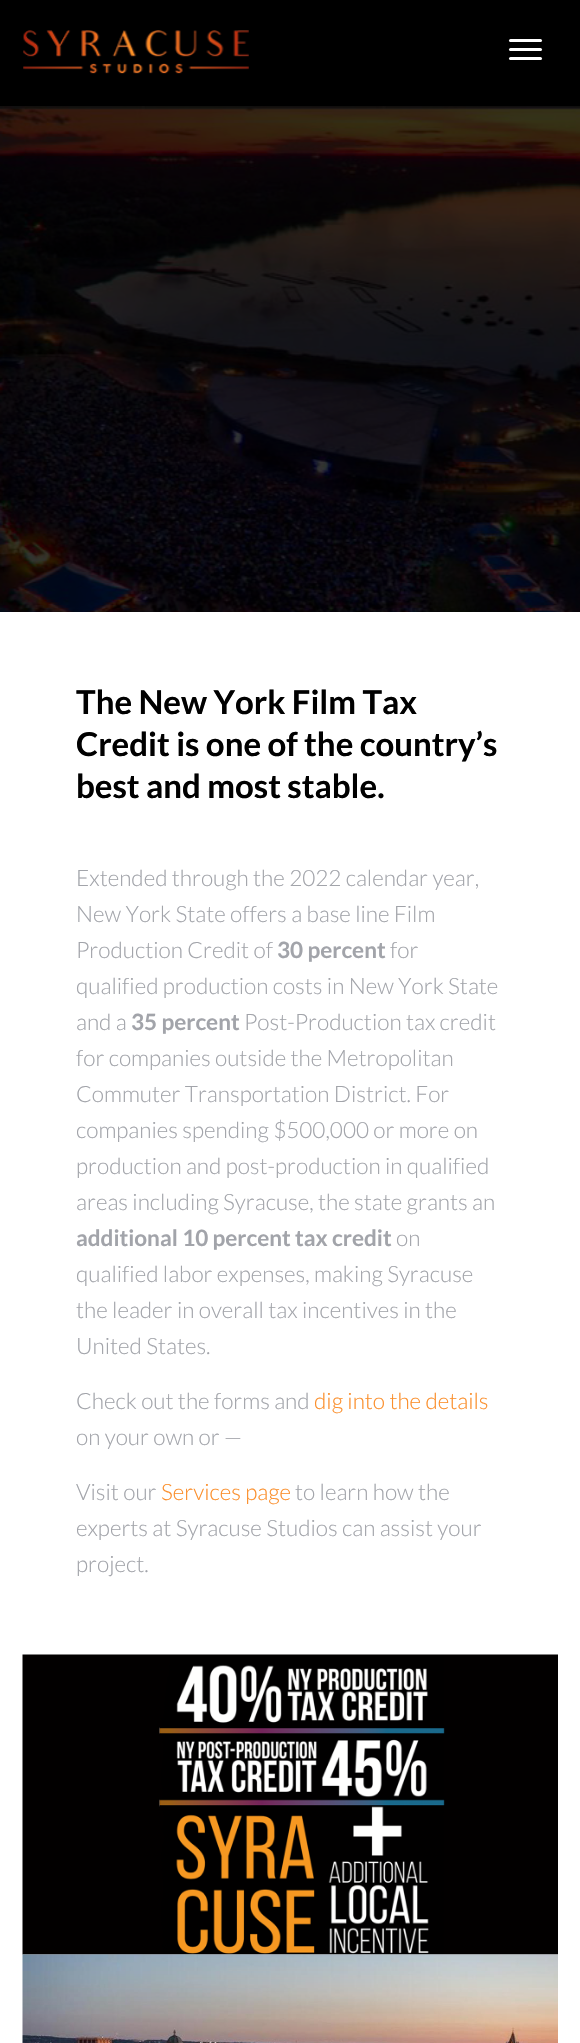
#include "include/core/SkBlurTypes.h"
#include "include/core/SkCanvas.h"
#include "include/core/SkData.h"
#include "include/core/SkFont.h"
#include "include/core/SkFontMgr.h"
#include "include/core/SkImage.h"
#include "include/core/SkMaskFilter.h"
#include "include/core/SkPaint.h"
#include "include/core/SkPathBuilder.h"
#include "include/core/SkTextBlob.h"
#include "include/effects/SkDashPathEffect.h"
#include "include/effects/SkGradientShader.h"
#include "include/utils/SkParsePath.h"

extern sk_sp<SkFontMgr> fontMgr;

void draw(SkCanvas* canvas) {
    SkPaint p;
    p.setAntiAlias(true);
    auto font = [&](const char* family, int weight, float size, bool italic = false) {
        SkFontStyle style(weight, SkFontStyle::kNormal_Width,
            italic ? SkFontStyle::kItalic_Slant : SkFontStyle::kUpright_Slant);
        SkFont result(fontMgr->matchFamilyStyle(family, style), size);
        result.setSubpixel(true);
        return result;
    };
    auto drawPhoto = [&](const char* path, float l, float t, float r, float b) {
        auto image = SkImages::DeferredFromEncodedData(SkData::MakeFromFileName(path));
        canvas->drawImageRect(image, SkRect::MakeLTRB(l, t, r, b), SkSamplingOptions());
    };
    canvas->clear(0xFFFFFFFF);
    p.setColor(0xFF000000);
    canvas->drawRect(SkRect::MakeLTRB(0, 0, 580, 106), p);
    drawPhoto("media/1.png", 23, 30, 249, 74);
    p.setColor(0xFFFFFFFF);
    canvas->drawRoundRect(SkRect::MakeLTRB(509, 39, 542, 42), 1.5f, 1.5f, p);
    canvas->drawRoundRect(SkRect::MakeLTRB(509, 48, 542, 51), 1.5f, 1.5f, p);
    canvas->drawRoundRect(SkRect::MakeLTRB(509, 57, 542, 60), 1.5f, 1.5f, p);
    p.setColor(0xFF000000);
    canvas->drawRect(SkRect::MakeLTRB(0, 106, 580, 612), p);
    drawPhoto("media/2.png", 0, 106, 580, 612);
    auto font1 = font("Lato", 700, 33);
    {
        const struct { const char* s; float x, y; } items[] = {
            {"The New York Film Tax", 76, 714},
            {"Credit is one of the country’s", 76, 756},
            {"best and most stable.", 76, 798},
        };
        for (auto [s, x, y] : items) {
            canvas->drawString(s, x, y, font1, p);
        }
    }
    auto font2 = font("Lato", 300, 22.5f);
    p.setColor(0xFFA2A4AA);
    {
        const struct { const char* s; float x, y; } items[] = {
            {"Extended through the 2022 calendar year,", 76, 886},
            {"New York State offers a base line Film", 76, 922},
            {"Production Credit of", 76, 958},
        };
        for (auto [s, x, y] : items) {
            canvas->drawString(s, x, y, font2, p);
        }
    }
    auto font3 = font("Lato", 700, 22.5f);
    canvas->drawString("30 percent", 277, 958, font3, p);
    {
        const struct { const char* s; float x, y; } items[] = {
            {"for", 390, 958},
            {"qualified production costs in New York State", 76, 994},
            {"and a", 76, 1030},
        };
        for (auto [s, x, y] : items) {
            canvas->drawString(s, x, y, font2, p);
        }
    }
    canvas->drawString("35 percent", 131, 1030, font3, p);
    {
        const struct { const char* s; float x, y; } items[] = {
            {"Post-Production tax credit", 244, 1030},
            {"for companies outside the Metropolitan", 76, 1066},
            {"Commuter Transportation District. For", 76, 1102},
            {"companies spending $500,000 or more on", 76, 1138},
            {"production and post-production in qualified", 76, 1174},
            {"areas including Syracuse, the state grants an", 76, 1210},
        };
        for (auto [s, x, y] : items) {
            canvas->drawString(s, x, y, font2, p);
        }
    }
    canvas->drawString("additional 10 percent tax credit", 76, 1246, font3, p);
    {
        const struct { const char* s; float x, y; } items[] = {
            {"on", 396, 1246},
            {"qualified labor expenses, making Syracuse", 76, 1282},
            {"the leader in overall tax incentives in the", 76, 1318},
            {"United States.", 76, 1354},
            {"Check out the forms and", 76, 1409},
        };
        for (auto [s, x, y] : items) {
            canvas->drawString(s, x, y, font2, p);
        }
    }
    p.setColor(0xFFFB8E2A);
    canvas->drawString("dig into the details", 314, 1409, font2, p);
    p.setColor(0xFFA2A4AA);
    canvas->drawString("on your own or —", 76, 1445, font2, p);
    canvas->drawString("Visit our", 76, 1500, font2, p);
    p.setColor(0xFFFB8E2A);
    canvas->drawString("Services page", 161, 1500, font2, p);
    p.setColor(0xFFA2A4AA);
    {
        const struct { const char* s; float x, y; } items[] = {
            {"to learn how the", 295, 1500},
            {"experts at Syracuse Studios can assist your", 76, 1536},
            {"project.", 76, 1572},
        };
        for (auto [s, x, y] : items) {
            canvas->drawString(s, x, y, font2, p);
        }
    }
    drawPhoto("media/3.png", 22, 1654, 558, 1955);
    drawPhoto("media/4.png", 22, 1954, 558, 2043);
}
